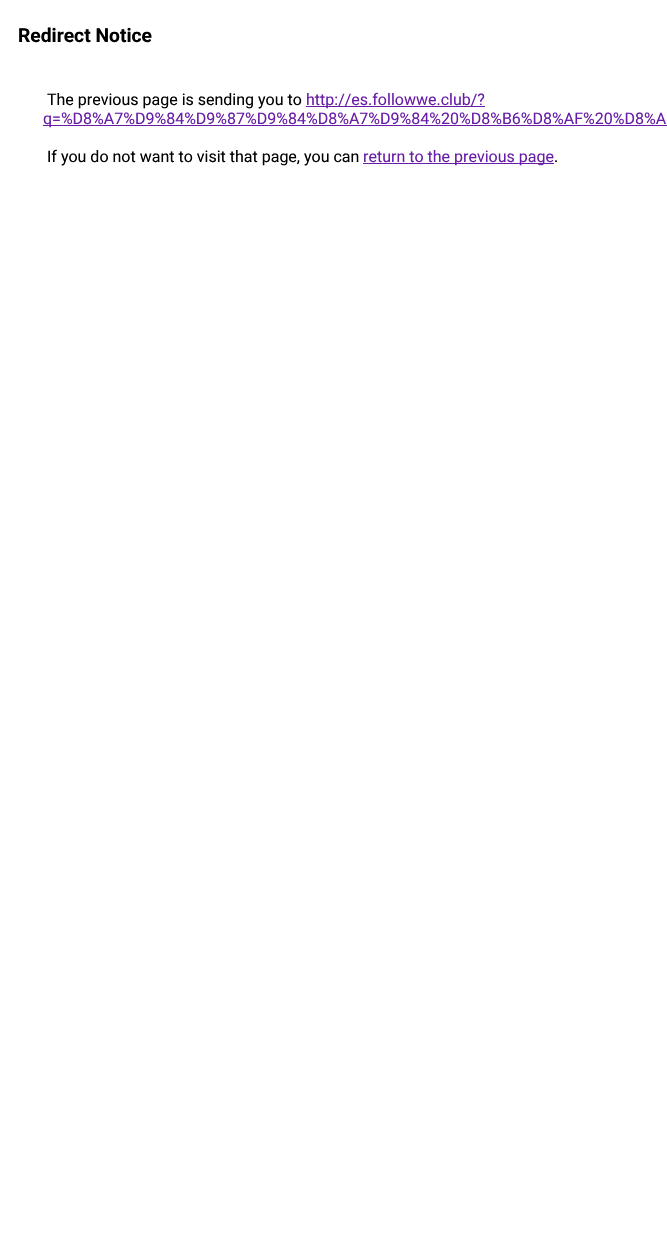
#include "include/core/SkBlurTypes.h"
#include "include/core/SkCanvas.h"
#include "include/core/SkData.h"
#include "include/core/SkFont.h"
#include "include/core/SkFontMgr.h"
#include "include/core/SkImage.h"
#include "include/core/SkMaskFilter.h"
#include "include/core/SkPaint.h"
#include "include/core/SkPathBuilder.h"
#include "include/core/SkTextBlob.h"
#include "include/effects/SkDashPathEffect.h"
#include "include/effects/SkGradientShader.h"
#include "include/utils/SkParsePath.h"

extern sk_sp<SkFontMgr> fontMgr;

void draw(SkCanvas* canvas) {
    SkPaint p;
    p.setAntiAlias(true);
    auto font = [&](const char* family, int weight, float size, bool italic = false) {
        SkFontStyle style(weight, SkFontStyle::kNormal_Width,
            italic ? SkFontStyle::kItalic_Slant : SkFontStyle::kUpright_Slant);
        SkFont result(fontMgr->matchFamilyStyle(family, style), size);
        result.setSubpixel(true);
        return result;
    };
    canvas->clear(0xFFFFFFFF);
    auto font1 = font("Roboto", 700, 19.25f);
    p.setColor(0xFF000000);
    canvas->drawString("Redirect Notice", 18, 42, font1, p);
    auto font2 = font("Roboto", 400, 16);
    canvas->drawString("The previous page is sending you to", 47, 105, font2, p);
    p.setColor(0xFF681DA8);
    canvas->drawRect(SkRect::MakeLTRB(306, 106, 485, 107), p);
    canvas->drawString("http://es.followwe.club/?", 306, 105, font2, p);
    canvas->drawRect(SkRect::MakeLTRB(43, 125, 667, 126), p);
    canvas->drawString("q=%D8%A7%D9%84%D9%87%D9%84%D8%A7%D9%84%20%D8%B6%D8%AF%20%D8%A", 43, 124, font2, p);
    p.setColor(0xFF000000);
    canvas->drawString("If you do not want to visit that page, you can", 47, 162, font2, p);
    p.setColor(0xFF681DA8);
    canvas->drawRect(SkRect::MakeLTRB(363, 163, 554, 164), p);
    canvas->drawString("return to the previous page", 363, 162, font2, p);
    p.setColor(0xFF000000);
    canvas->drawString(".", 554, 162, font2, p);
}
